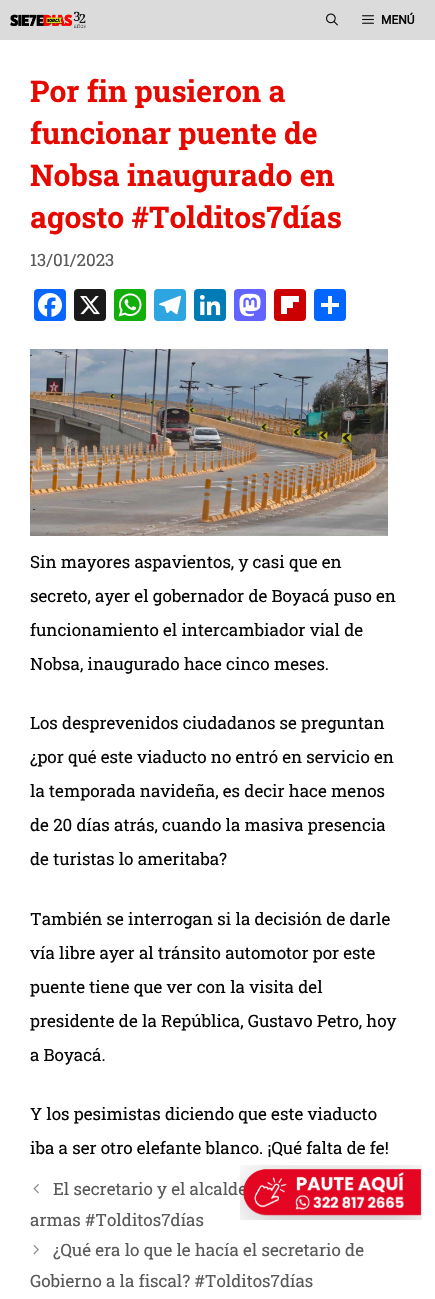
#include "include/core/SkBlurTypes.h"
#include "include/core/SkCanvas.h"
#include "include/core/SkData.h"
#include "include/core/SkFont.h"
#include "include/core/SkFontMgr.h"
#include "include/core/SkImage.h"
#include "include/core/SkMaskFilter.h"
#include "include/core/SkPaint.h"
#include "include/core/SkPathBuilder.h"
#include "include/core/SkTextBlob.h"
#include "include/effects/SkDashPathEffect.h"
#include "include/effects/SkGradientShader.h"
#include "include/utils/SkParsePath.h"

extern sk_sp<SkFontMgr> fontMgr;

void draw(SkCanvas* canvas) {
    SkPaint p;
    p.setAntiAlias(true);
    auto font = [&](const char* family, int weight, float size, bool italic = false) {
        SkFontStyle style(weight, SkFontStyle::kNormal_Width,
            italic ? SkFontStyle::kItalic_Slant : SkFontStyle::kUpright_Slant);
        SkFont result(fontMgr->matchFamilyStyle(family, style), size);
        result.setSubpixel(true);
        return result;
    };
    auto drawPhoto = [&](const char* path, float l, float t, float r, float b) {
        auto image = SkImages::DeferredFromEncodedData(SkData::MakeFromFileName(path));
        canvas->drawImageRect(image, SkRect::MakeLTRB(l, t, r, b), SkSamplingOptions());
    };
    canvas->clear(0xFFFFFFFF);
    p.setColor(0xFFDBDBDB);
    canvas->drawRect(SkRect::MakeLTRB(0, 0, 435, 40), p);
    drawPhoto("media/1.png", 10, 11, 86, 29);
    drawPhoto("media/2.png", 326, 13, 338, 26);
    drawPhoto("media/3.png", 362, 15, 374, 24);
    auto font1 = font("Roboto", 700, 12);
    p.setColor(0xFF070707);
    canvas->drawString("MENÚ", 381, 24, font1, p);
    auto font2 = font("Roboto Slab", 700, 30);
    p.setColor(0xFFE70800);
    {
        const struct { const char* s; float x, y; } items[] = {
            {"Por fin pusieron a", 30, 102},
            {"funcionar puente de", 30, 144},
            {"Nobsa inaugurado en", 30, 186},
            {"agosto #Tolditos7días", 30, 228},
        };
        for (auto [s, x, y] : items) {
            canvas->drawString(s, x, y, font2, p);
        }
    }
    auto font3 = font("Roboto Slab", 400, 17);
    p.setColor(0xFF595959);
    canvas->drawString("13/01/2023", 30, 266, font3, p);
    p.setColor(0xFF0866FF);
    canvas->drawRoundRect(SkRect::MakeLTRB(34, 289, 66, 321), 4, 4, p);
    drawPhoto("media/4.png", 38, 293, 62, 317);
    p.setColor(0xFF1A1A1A);
    canvas->drawRoundRect(SkRect::MakeLTRB(74, 289, 106, 321), 4, 4, p);
    drawPhoto("media/5.png", 80, 296, 100, 315);
    p.setColor(0xFF12AF0A);
    canvas->drawRoundRect(SkRect::MakeLTRB(114, 289, 146, 321), 4, 4, p);
    drawPhoto("media/6.png", 118, 293, 142, 317);
    p.setColor(0xFF2CA5E0);
    canvas->drawRoundRect(SkRect::MakeLTRB(154, 289, 186, 321), 4, 4, p);
    drawPhoto("media/7.png", 159, 295, 181, 315);
    p.setColor(0xFF007BB5);
    canvas->drawRoundRect(SkRect::MakeLTRB(194, 289, 226, 321), 4, 4, p);
    drawPhoto("media/8.png", 199, 294, 221, 316);
    p.setColor(0xFF6364FF);
    canvas->drawRoundRect(SkRect::MakeLTRB(234, 289, 266, 321), 4, 4, p);
    drawPhoto("media/9.png", 239, 293, 261, 317);
    p.setColor(0xFFCC0000);
    canvas->drawRoundRect(SkRect::MakeLTRB(274, 289, 306, 321), 4, 4, p);
    {
        const struct { float l, t, r, b; SkColor color; } items[] = {
            {287, 302, 293, 308, 0xFFFFFFFF},
            {281, 296, 299, 302, 0xFFFFFFFF},
            {281, 296, 287, 314, 0xFFFFFFFF},
        };
        for (auto [l, t, r, b, color] : items) {
            p.setColor(color);
            canvas->drawRect(SkRect::MakeLTRB(l, t, r, b), p);
        }
    }
    p.setColor(0xFF0166FF);
    canvas->drawRoundRect(SkRect::MakeLTRB(314, 289, 346, 321), 4, 4, p);
    p.setColor(0xFFFFFFFF);
    canvas->drawRect(SkRect::MakeLTRB(328, 296, 332, 314), p);
    canvas->drawRect(SkRect::MakeLTRB(321, 303, 339, 307), p);
    drawPhoto("media/10.png", 30, 349, 388, 536);
    p.setColor(0xFF070707);
    {
        const struct { const char* s; float x, y; } items[] = {
            {"Sin mayores aspavientos, y casi que en", 30, 568},
            {"secreto, ayer el gobernador de Boyacá puso en", 30, 602},
            {"funcionamiento el intercambiador vial de", 30, 636},
            {"Nobsa, inaugurado hace cinco meses.", 30, 670},
            {"Los desprevenidos ciudadanos se preguntan", 30, 729},
            {"¿por qué este viaducto no entró en servicio en", 30, 763},
            {"la temporada navideña, es decir hace menos", 30, 797},
            {"de 20 días atrás, cuando la masiva presencia", 30, 831},
            {"de turistas lo ameritaba?", 30, 865},
            {"También se interrogan si la decisión de darle", 30, 925},
            {"vía libre ayer al tránsito automotor por este", 30, 959},
            {"puente tiene que ver con la visita del", 30, 993},
            {"presidente de la República, Gustavo Petro, hoy", 30, 1027},
            {"a Boyacá.", 30, 1061},
            {"Y los pesimistas diciendo que este viaducto", 30, 1120},
            {"iba a ser otro elefante blanco. ¡Qué falta de fe!", 30, 1154},
        };
        for (auto [s, x, y] : items) {
            canvas->drawString(s, x, y, font3, p);
        }
    }
    drawPhoto("media/11.png", 33, 1184, 39, 1194);
    p.setColor(0xFF595959);
    canvas->drawString("El secretario y el alcalde", 53, 1195, font3, p);
    canvas->drawString("armas #Tolditos7días", 30, 1226, font3, p);
    drawPhoto("media/12.png", 33, 1245, 39, 1255);
    canvas->drawString("¿Qué era lo que le hacía el secretario de", 53, 1256, font3, p);
    canvas->drawString("Gobierno a la fiscal? #Tolditos7días", 30, 1287, font3, p);
    drawPhoto("media/13.png", 240, 1165, 422, 1220);
}
